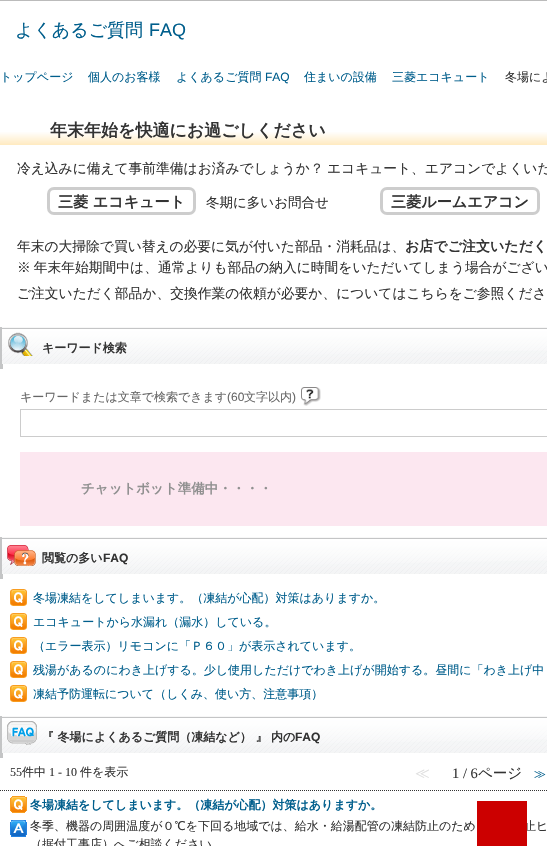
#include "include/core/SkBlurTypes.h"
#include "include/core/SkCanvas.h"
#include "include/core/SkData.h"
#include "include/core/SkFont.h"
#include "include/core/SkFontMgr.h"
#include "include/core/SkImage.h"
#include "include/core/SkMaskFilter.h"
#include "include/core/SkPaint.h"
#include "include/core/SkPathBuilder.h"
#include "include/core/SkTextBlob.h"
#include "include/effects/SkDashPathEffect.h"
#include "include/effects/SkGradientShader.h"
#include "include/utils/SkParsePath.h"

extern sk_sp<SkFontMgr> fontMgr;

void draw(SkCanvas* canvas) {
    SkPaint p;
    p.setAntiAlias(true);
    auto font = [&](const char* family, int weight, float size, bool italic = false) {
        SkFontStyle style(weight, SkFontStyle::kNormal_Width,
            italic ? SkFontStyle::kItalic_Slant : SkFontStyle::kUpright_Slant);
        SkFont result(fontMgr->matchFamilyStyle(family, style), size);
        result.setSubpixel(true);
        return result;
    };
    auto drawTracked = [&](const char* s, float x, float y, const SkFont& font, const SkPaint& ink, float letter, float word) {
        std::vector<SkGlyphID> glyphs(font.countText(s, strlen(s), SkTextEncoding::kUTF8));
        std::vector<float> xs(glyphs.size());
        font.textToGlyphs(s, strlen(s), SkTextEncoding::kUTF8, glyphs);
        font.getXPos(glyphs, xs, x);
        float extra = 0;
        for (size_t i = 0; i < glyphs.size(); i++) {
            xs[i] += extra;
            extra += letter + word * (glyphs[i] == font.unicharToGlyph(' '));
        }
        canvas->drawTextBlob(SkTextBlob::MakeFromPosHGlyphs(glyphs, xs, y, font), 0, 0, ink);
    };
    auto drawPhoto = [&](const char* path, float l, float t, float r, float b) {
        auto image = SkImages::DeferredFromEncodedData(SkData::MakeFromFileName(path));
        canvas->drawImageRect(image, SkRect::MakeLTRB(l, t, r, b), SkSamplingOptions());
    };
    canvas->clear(0xFFFFFFFF);
    p.setColor(0xFFBBBBBB);
    canvas->drawRect(SkRect::MakeLTRB(0, 0, 547, 1), p);
    auto font1 = font("WenQuanYi Zen Hei", 500, 18);
    p.setColor(0xFF005E8C);
    canvas->drawString("よくあるご質問", 15, 36, font1, p);
    auto font2 = font("Liberation Sans", 400, 18);
    canvas->drawString("FAQ", 149, 36, font2, p);
    auto font3 = font("WenQuanYi Zen Hei", 500, 12);
    {
        const struct { const char* s; float x, y; } items[] = {
            {"トップページ", 0, 81},
            {"個人のお客様", 88, 81},
            {"よくあるご質問", 176, 81},
        };
        for (auto [s, x, y] : items) {
            canvas->drawString(s, x, y, font3, p);
        }
    }
    auto font4 = font("Liberation Sans", 400, 12);
    canvas->drawString("FAQ", 265, 81, font4, p);
    canvas->drawString("住まいの設備", 304, 81, font3, p);
    canvas->drawString("三菱エコキュート", 392, 81, font3, p);
    p.setColor(0xFF333333);
    canvas->drawString("冬場によ", 505, 81, font3, p);
    {
        const SkColor colors[] = {0xFFFFFFFF, 0xFFFFFFFF, 0xFFFFEAC0};
        const float stops[] = {0, 0.5f, 1};
        const SkPoint ends[] = {{431, 118}, {431, 145}};
        p.setShader(SkGradientShader::MakeLinear(ends, colors, stops, 3, SkTileMode::kClamp));
        p.setAlpha(255);
    }
    canvas->drawRect(SkRect::MakeLTRB(0, 132, 547, 145), p);
    auto font5 = font("WenQuanYi Zen Hei", 700, 17);
    p.setShader(nullptr);
    p.setColor(0xFF333333);
    canvas->drawString("年末年始を快適にお過ごしください", 50, 136, font5, p);
    auto font6 = font("WenQuanYi Zen Hei", 500, 13.75f);
    canvas->drawString("冷え込みに備えて事前準備はお済みでしょうか？", 17, 173, font6, p);
    canvas->drawString("エコキュート、エアコンでよくいた", 327, 173, font6, p);
    p.setStyle(SkPaint::kStroke_Style);
    p.setStrokeWidth(3);
    p.setColor(0xFFCDCDCD);
    canvas->drawRoundRect(SkRect::MakeLTRB(48.5f, 188.5f, 194.5f, 213.5f), 5.5f, 5.5f, p);
    auto font7 = font("WenQuanYi Zen Hei", 700, 15.1f);
    p.setStyle(SkPaint::kFill_Style);
    p.setColor(0xFF333333);
    canvas->drawString("三菱 エコキュート", 58, 207, font7, p);
    auto font8 = font("WenQuanYi Zen Hei", 500, 13.5f);
    canvas->drawString("冬期に多いお問合せ", 206, 207, font8, p);
    p.setStyle(SkPaint::kStroke_Style);
    p.setColor(0xFFCDCDCD);
    canvas->drawRoundRect(SkRect::MakeLTRB(381.5f, 188.5f, 538.5f, 213.5f), 5.5f, 5.5f, p);
    p.setStyle(SkPaint::kFill_Style);
    p.setColor(0xFF333333);
    canvas->drawString("三菱ルームエアコン", 391, 207, font7, p);
    canvas->drawString("年末の大掃除で買い替えの必要に気が付いた部品・消耗品は、", 17, 251, font6, p);
    auto font9 = font("WenQuanYi Zen Hei", 700, 14);
    canvas->drawString("お店でご注文いただく", 405, 251, font9, p);
    drawTracked("※ 年末年始期間中は、通常よりも部品の納入に時間をいただいてしまう場合がござい", 17, 272, font6, p, 0, -1);
    canvas->drawString("ご注文いただく部品か、交換作業の依頼が必要か、についてはこちらをご参照くださ", 17, 298, font6, p);
    p.setColor(0xFFC4C5C6);
    canvas->drawRect(SkRect::MakeLTRB(0, 327, 3, 369), p);
    drawPhoto("media/1.png", 2, 327, 547, 364);
    drawPhoto("media/2.png", 8, 332, 33, 356);
    auto font10 = font("WenQuanYi Zen Hei", 700, 12);
    p.setColor(0xFF333333);
    canvas->drawString("キーワード検索", 42, 352, font10, p);
    p.setColor(0xFF666666);
    canvas->drawString("キーワードまたは文章で検索できます", 20, 401, font3, p);
    canvas->drawString("(60", 227, 401, font4, p);
    canvas->drawString("文字以内", 244, 401, font3, p);
    canvas->drawString(")", 292, 401, font4, p);
    drawPhoto("media/3.png", 301, 387, 321, 406);
    {
        const struct { float l, t, r, b; SkColor color; } items[] = {
            {20, 409, 547, 410, 0xFFCCCCCC},
            {20, 436, 547, 437, 0xFFCCCCCC},
            {20, 409, 21, 437, 0xFFCCCCCC},
            {20, 452, 547, 526, 0xFFFCE7F0},
        };
        for (auto [l, t, r, b, color] : items) {
            p.setColor(color);
            canvas->drawRect(SkRect::MakeLTRB(l, t, r, b), p);
        }
    }
    auto font11 = font("WenQuanYi Zen Hei", 700, 13.5f);
    p.setColor(0xFF909090);
    canvas->drawString("チャットボット準備中・・・・", 81, 493, font11, p);
    p.setColor(0xFFC4C5C6);
    canvas->drawRect(SkRect::MakeLTRB(0, 537, 3, 579), p);
    drawPhoto("media/1.png", 2, 537, 547, 574);
    drawPhoto("media/4.png", 7, 545, 36, 566);
    p.setColor(0xFF333333);
    canvas->drawString("閲覧の多い", 42, 562, font10, p);
    auto font12 = font("Liberation Sans", 700, 12);
    canvas->drawString("FAQ", 103, 562, font12, p);
    drawPhoto("media/5.png", 10, 589, 27, 606);
    p.setColor(0xFF005E8C);
    canvas->drawString("冬場凍結をしてしまいます。（凍結が心配）対策はありますか。", 33, 602, font3, p);
    drawPhoto("media/5.png", 10, 613, 27, 630);
    canvas->drawString("エコキュートから水漏れ（漏水）している。", 33, 626, font3, p);
    drawPhoto("media/5.png", 10, 637, 27, 654);
    canvas->drawString("（エラー表示）リモコンに「Ｐ６０」が表示されています。", 33, 650, font3, p);
    drawPhoto("media/5.png", 10, 661, 27, 678);
    canvas->drawString("残湯があるのにわき上げする。少し使用しただけでわき上げが開始する。昼間に「わき上げ中", 33, 674, font3, p);
    drawPhoto("media/5.png", 10, 685, 27, 702);
    canvas->drawString("凍結予防運転について（しくみ、使い方、注意事項）", 33, 698, font3, p);
    p.setColor(0xFFC4C5C6);
    canvas->drawRect(SkRect::MakeLTRB(0, 716, 3, 758), p);
    drawPhoto("media/1.png", 2, 716, 547, 753);
    drawPhoto("media/6.png", 7, 721, 37, 745);
    p.setColor(0xFF333333);
    canvas->drawString("『 冬場によくあるご質問（凍結など） 』 内の", 42, 741, font10, p);
    canvas->drawString("FAQ", 295, 741, font12, p);
    auto font13 = font("Liberation Serif", 400, 12);
    canvas->drawString("55", 10, 776, font13, p);
    canvas->drawString("件中", 22, 776, font3, p);
    canvas->drawString("1 - 10", 49, 776, font13, p);
    canvas->drawString("件を表示", 80, 776, font3, p);
    auto font14 = font("WenQuanYi Zen Hei", 500, 14.5f);
    p.setColor(0xFFDDDDDD);
    canvas->drawString("≪", 415, 778, font14, p);
    auto font15 = font("Liberation Serif", 400, 14.5f);
    p.setColor(0xFF333333);
    canvas->drawString("1 / 6", 452, 778, font15, p);
    canvas->drawString("ページ", 478, 778, font14, p);
    p.setColor(0xFF005E8C);
    canvas->drawString("≫", 534, 778, font3, p);
    p.setStyle(SkPaint::kStroke_Style);
    p.setStrokeWidth(1);
    p.setColor(0xFF333333);
    p.setPathEffect(SkDashPathEffect::Make({{1, 1}}, 0));
    canvas->drawPath(SkPathBuilder().moveTo(0, 790.5f).lineTo(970, 790.5f).detach(), p);
    p.setPathEffect(nullptr);
    drawPhoto("media/7.png", 10, 796, 27, 813);
    p.setStyle(SkPaint::kFill_Style);
    p.setColor(0xFF005E8C);
    canvas->drawString("冬場凍結をしてしまいます。（凍結が心配）対策はありますか。", 30, 809, font10, p);
    drawPhoto("media/8.png", 10, 820, 27, 837);
    p.setColor(0xFF333333);
    {
        const struct { const char* s; float x, y; } items[] = {
            {"冬季、機器の周囲温度が０℃を下回る地域では、給水・給湯配管の凍結防止のため", 30, 830},
            {"止ヒ", 524, 830},
            {"（据付工事店）へご相談ください", 30, 848},
        };
        for (auto [s, x, y] : items) {
            canvas->drawString(s, x, y, font3, p);
        }
    }
    p.setColor(0xFFCC0000);
    canvas->drawRect(SkRect::MakeLTRB(477, 801, 527, 846), p);
}
